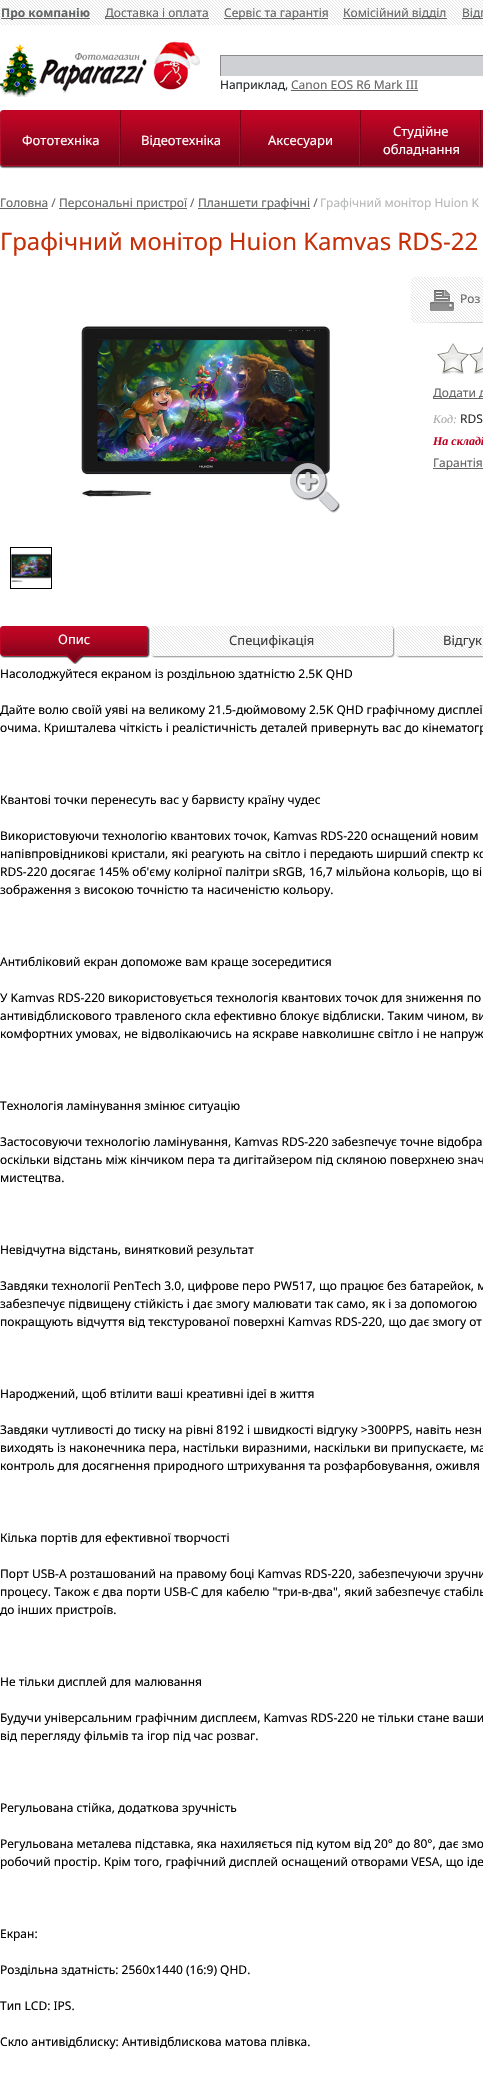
#include "include/core/SkBlurTypes.h"
#include "include/core/SkCanvas.h"
#include "include/core/SkData.h"
#include "include/core/SkFont.h"
#include "include/core/SkFontMgr.h"
#include "include/core/SkImage.h"
#include "include/core/SkMaskFilter.h"
#include "include/core/SkPaint.h"
#include "include/core/SkPathBuilder.h"
#include "include/core/SkTextBlob.h"
#include "include/effects/SkDashPathEffect.h"
#include "include/effects/SkGradientShader.h"
#include "include/utils/SkParsePath.h"

extern sk_sp<SkFontMgr> fontMgr;

void draw(SkCanvas* canvas) {
    SkPaint p;
    p.setAntiAlias(true);
    auto font = [&](const char* family, int weight, float size, bool italic = false) {
        SkFontStyle style(weight, SkFontStyle::kNormal_Width,
            italic ? SkFontStyle::kItalic_Slant : SkFontStyle::kUpright_Slant);
        SkFont result(fontMgr->matchFamilyStyle(family, style), size);
        result.setSubpixel(true);
        return result;
    };
    auto drawPhoto = [&](const char* path, float l, float t, float r, float b) {
        auto image = SkImages::DeferredFromEncodedData(SkData::MakeFromFileName(path));
        canvas->drawImageRect(image, SkRect::MakeLTRB(l, t, r, b), SkSamplingOptions());
    };
    canvas->clear(0xFFFFFFFF);
    drawPhoto("media/1.png", 0, 0, 483, 25);
    p.setColor(0xFF646565);
    canvas->drawRect(SkRect::MakeLTRB(1, 18, 90, 19), p);
    auto font1 = font("Noto Sans", 700, 12);
    canvas->drawString("Про компанію", 1, 17, font1, p);
    canvas->drawRect(SkRect::MakeLTRB(105, 18, 209, 19), p);
    auto font2 = font("Noto Sans", 400, 12);
    canvas->drawString("Доставка і оплата", 105, 17, font2, p);
    canvas->drawRect(SkRect::MakeLTRB(224, 18, 328, 19), p);
    canvas->drawString("Сервіс та гарантія", 224, 17, font2, p);
    canvas->drawRect(SkRect::MakeLTRB(343, 18, 447, 19), p);
    canvas->drawString("Комісійний відділ", 343, 17, font2, p);
    canvas->drawRect(SkRect::MakeLTRB(462, 18, 483, 19), p);
    canvas->drawString("Відг", 462, 17, font2, p);
    drawPhoto("media/2.png", 0, 41, 200, 97);
    {
        const struct { float l, t, r, b; SkColor color; } items[] = {
            {221, 56, 483, 76, 0xFFCFD0D3},
            {220, 55, 483, 56, 0xFF8B8B8D},
            {220, 55, 221, 76, 0xFF8B8B8D},
        };
        for (auto [l, t, r, b, color] : items) {
            p.setColor(color);
            canvas->drawRect(SkRect::MakeLTRB(l, t, r, b), p);
        }
    }
    p.setColor(0xFF272A2E);
    canvas->drawString("Наприклад,", 220, 89, font2, p);
    p.setColor(0xFF646565);
    canvas->drawRect(SkRect::MakeLTRB(291, 90, 418, 91), p);
    canvas->drawString("Canon EOS R6 Mark III", 291, 89, font2, p);
    drawPhoto("media/3.png", 0, 110, 483, 169);
    drawPhoto("media/4.png", 119, 110, 121, 166);
    auto font3 = font("Noto Sans", 400, 13);
    p.setColor(0xFFFFFFFF);
    canvas->drawString("Фототехніка", 22, 145, font3, p);
    drawPhoto("media/4.png", 239, 110, 241, 166);
    canvas->drawString("Відеотехніка", 141, 145, font3, p);
    drawPhoto("media/4.png", 359, 110, 361, 166);
    canvas->drawString("Аксесуари", 268, 145, font3, p);
    drawPhoto("media/4.png", 479, 110, 481, 166);
    canvas->drawString("Студійне", 393, 136, font3, p);
    canvas->drawString("обладнання", 383, 154, font3, p);
    p.setColor(0xFF646565);
    canvas->drawString("Головна /", 0, 207, font2, p);
    canvas->drawRect(SkRect::MakeLTRB(0, 208, 48, 209), p);
    canvas->drawRect(SkRect::MakeLTRB(59, 208, 187, 209), p);
    canvas->drawString("Персональні пристрої /", 59, 207, font2, p);
    canvas->drawRect(SkRect::MakeLTRB(198, 208, 310, 209), p);
    canvas->drawString("Планшети графічні /", 198, 207, font2, p);
    p.setColor(0xFFB7B8B8);
    canvas->drawString("Графічний монітор Huion K", 320, 207, font2, p);
    auto font4 = font("Noto Sans", 400, 24);
    p.setColor(0xFFC53009);
    canvas->drawString("Графічний монітор Huion Kamvas RDS-22", 0, 250, font4, p);
    drawPhoto("media/5.png", 80, 326, 330, 497);
    p.setColor(0xFF000000);
    canvas->drawRect(SkRect::MakeLTRB(10, 547, 52, 589), p);
    drawPhoto("media/6.png", 11, 548, 51, 588);
    drawPhoto("media/7.png", 290, 463, 340, 513);
    drawPhoto("media/8.png", 410, 277, 483, 323);
    drawPhoto("media/9.png", 430, 290, 455, 312);
    p.setColor(0xFF646565);
    canvas->drawString("Роз", 460, 303, font2, p);
    drawPhoto("media/10.png", 437, 343, 483, 374);
    canvas->drawRect(SkRect::MakeLTRB(433, 398, 483, 399), p);
    canvas->drawString("Додати д", 433, 397, font2, p);
    auto font5 = font("Liberation Serif", 400, 12, true);
    p.setColor(0xFFABAAAA);
    canvas->drawString("Код:", 433, 423, font5, p);
    p.setColor(0xFF2D2D2D);
    canvas->drawString("RDS", 460, 423, font2, p);
    auto font6 = font("Liberation Serif", 700, 12, true);
    p.setColor(0xFFBF0525);
    canvas->drawString("На складі", 433, 445, font6, p);
    p.setColor(0xFF646565);
    canvas->drawRect(SkRect::MakeLTRB(433, 468, 483, 469), p);
    canvas->drawString("Гарантія", 433, 467, font2, p);
    drawPhoto("media/11.png", 145, 626, 150, 658);
    drawPhoto("media/12.png", 0, 626, 145, 658);
    drawPhoto("media/13.png", 65, 653, 83, 664);
    p.setColor(0xFFFFFFFF);
    canvas->drawString("Опис", 58, 644, font3, p);
    drawPhoto("media/14.png", 390, 626, 395, 658);
    drawPhoto("media/15.png", 150, 626, 390, 658);
    p.setColor(0xFF3C3C3C);
    canvas->drawString("Специфікація", 229, 645, font3, p);
    drawPhoto("media/16.png", 395, 626, 483, 658);
    canvas->drawString("Відгук", 443, 645, font3, p);
    p.setColor(0xFF000000);
    {
        const struct { const char* s; float x, y; } items[] = {
            {"Насолоджуйтеся екраном із роздільною здатністю 2.5K QHD", 0, 678},
            {"Дайте волю своїй уяві на великому 21.5-дюймовому 2.5K QHD графічному дисплеї", 0, 714},
            {"очима. Кришталева чіткість і реалістичність деталей привернуть вас до кінематогр", 0, 732},
            {"Квантові точки перенесуть вас у барвисту країну чудес", 0, 804},
            {"Використовуючи технологію квантових точок, Kamvas RDS-220 оснащений новим", 0, 840},
            {"напівпровідникові кристали, які реагують на світло і передають ширший спектр ко", 0, 858},
            {"RDS-220 досягає 145% об'єму колірної палітри sRGB, 16,7 мільйона кольорів, що ві", 0, 876},
            {"зображення з високою точністю та насиченістю кольору.", 0, 894},
            {"Антибліковий екран допоможе вам краще зосередитися", 0, 966},
            {"У Kamvas RDS-220 використовується технологія квантових точок для зниження по", 0, 1002},
            {"антивідблискового травленого скла ефективно блокує відблиски. Таким чином, ви", 0, 1020},
            {"комфортних умовах, не відволікаючись на яскраве навколишнє світло і не напруж", 0, 1038},
            {"Технологія ламінування змінює ситуацію", 0, 1110},
            {"Застосовуючи технологію ламінування, Kamvas RDS-220 забезпечує точне відобра", 0, 1146},
            {"оскільки відстань між кінчиком пера та дигітайзером під скляною поверхнею знач", 0, 1164},
            {"мистецтва.", 0, 1182},
            {"Невідчутна відстань, винятковий результат", 0, 1254},
            {"Завдяки технології PenTech 3.0, цифрове перо PW517, що працює без батарейок, м", 0, 1290},
            {"забезпечує підвищену стійкість і дає змогу малювати так само, як і за допомогою", 0, 1308},
            {"покращують відчуття від текстурованої поверхні Kamvas RDS-220, що дає змогу от", 0, 1326},
            {"Народжений, щоб втілити ваші креативні ідеї в життя", 0, 1398},
            {"Завдяки чутливості до тиску на рівні 8192 і швидкості відгуку >300PPS, навіть незн", 0, 1434},
            {"виходять із наконечника пера, настільки виразними, наскільки ви припускаєте, ма", 0, 1452},
            {"контроль для досягнення природного штрихування та розфарбовування, оживля", 0, 1470},
            {"Кілька портів для ефективної творчості", 0, 1542},
            {"Порт USB-A розташований на правому боці Kamvas RDS-220, забезпечуючи зручни", 0, 1578},
            {"процесу. Також є два порти USB-C для кабелю \"три-в-два\", який забезпечує стабіль", 0, 1596},
            {"до інших пристроїв.", 0, 1614},
            {"Не тільки дисплей для малювання", 0, 1686},
            {"Будучи універсальним графічним дисплеєм, Kamvas RDS-220 не тільки стане ваши", 0, 1722},
            {"від перегляду фільмів та ігор під час розваг.", 0, 1740},
            {"Регульована стійка, додаткова зручність", 0, 1812},
            {"Регульована металева підставка, яка нахиляється під кутом від 20° до 80°, дає змо", 0, 1848},
            {"робочий простір. Крім того, графічний дисплей оснащений отворами VESA, що іде", 0, 1866},
            {"Екран:", 0, 1938},
            {"Роздільна здатність: 2560x1440 (16:9) QHD.", 0, 1974},
            {"Тип LCD: IPS.", 0, 2010},
            {"Скло антивідблиску: Антивідблискова матова плівка.", 0, 2046},
        };
        for (auto [s, x, y] : items) {
            canvas->drawString(s, x, y, font2, p);
        }
    }
}
